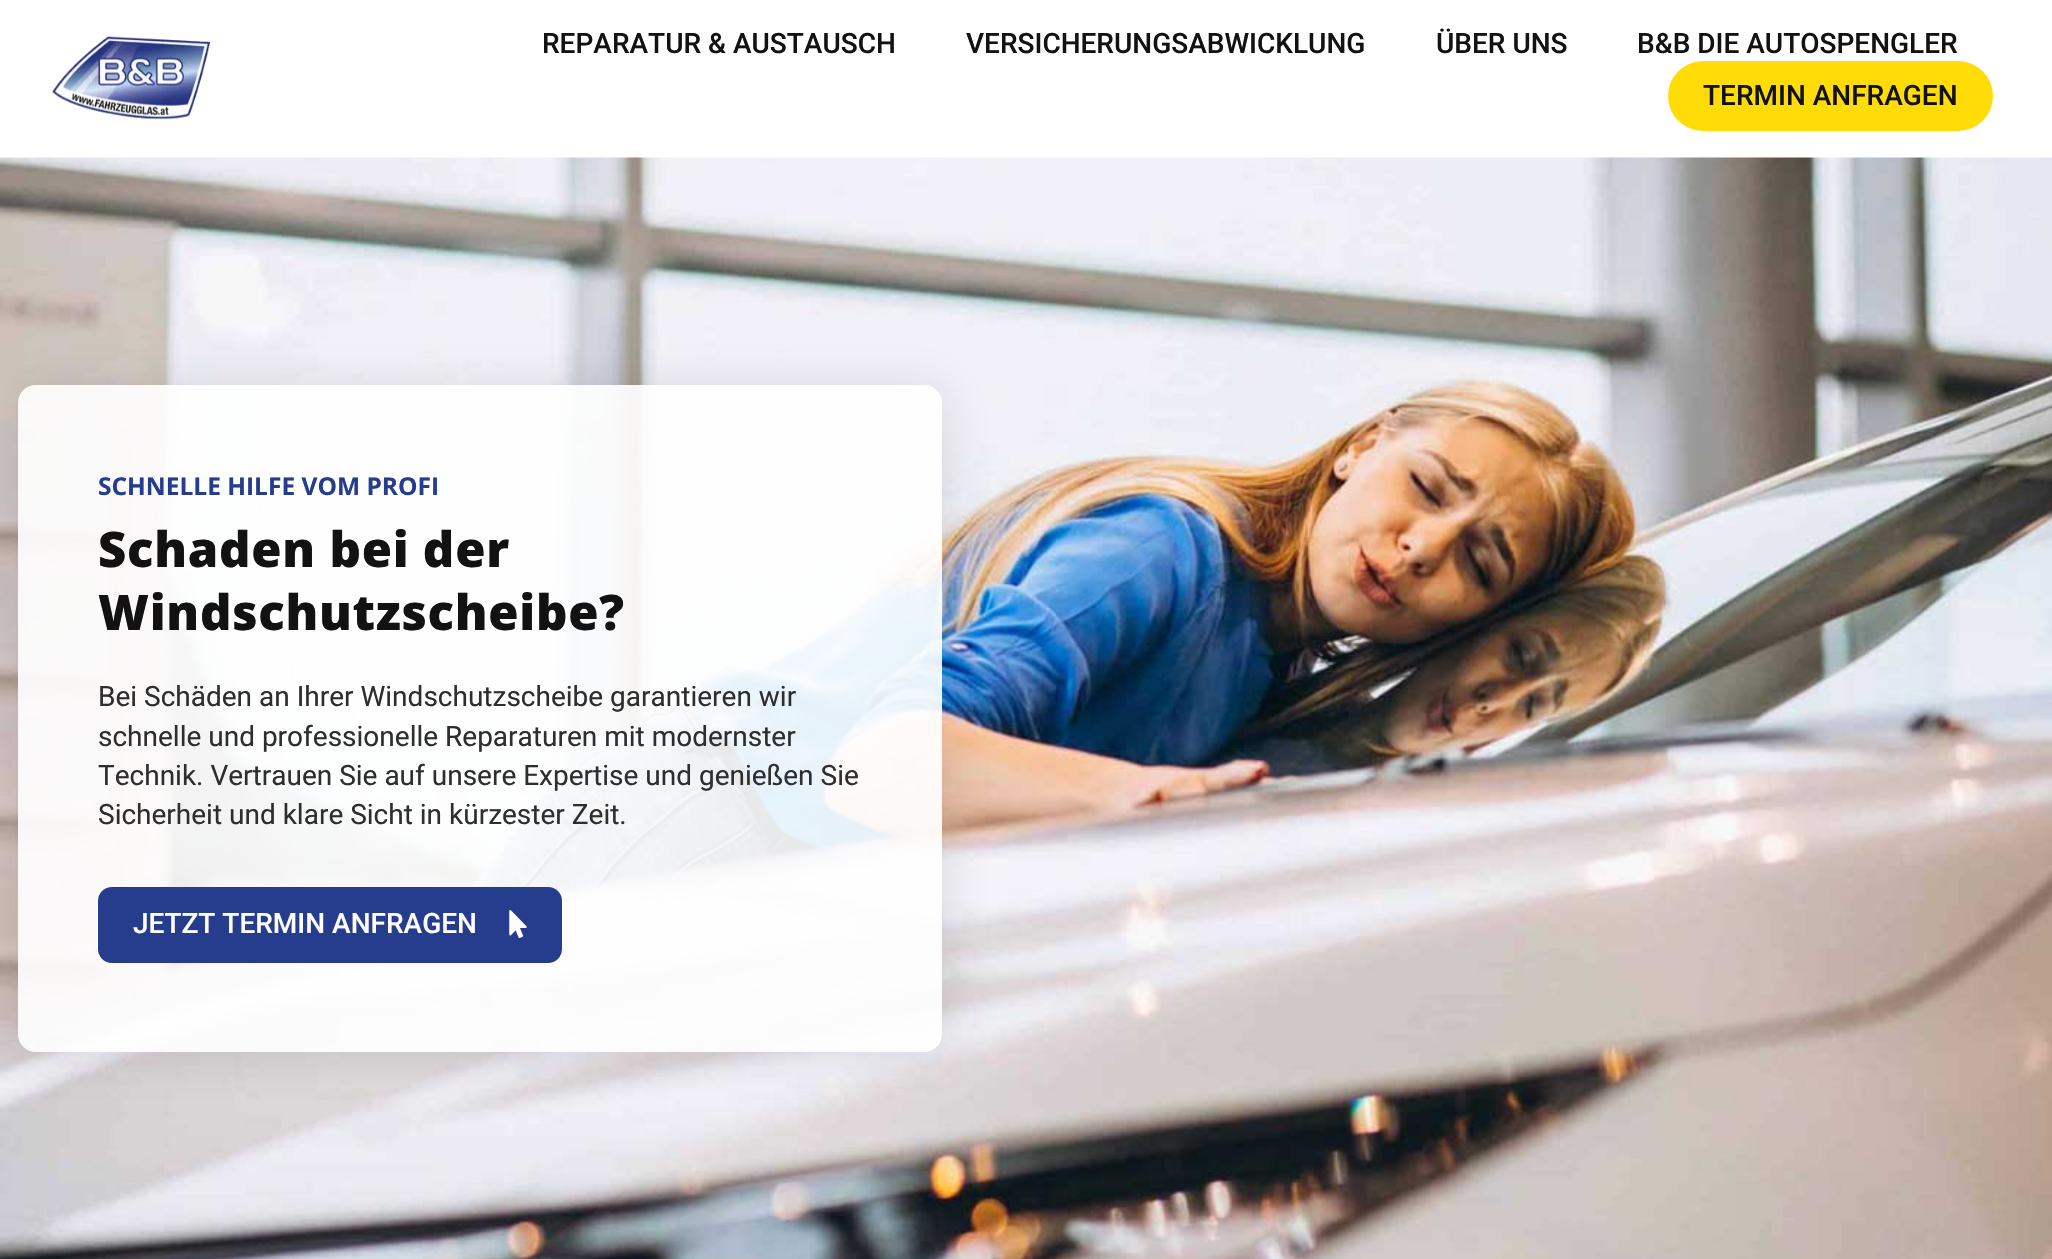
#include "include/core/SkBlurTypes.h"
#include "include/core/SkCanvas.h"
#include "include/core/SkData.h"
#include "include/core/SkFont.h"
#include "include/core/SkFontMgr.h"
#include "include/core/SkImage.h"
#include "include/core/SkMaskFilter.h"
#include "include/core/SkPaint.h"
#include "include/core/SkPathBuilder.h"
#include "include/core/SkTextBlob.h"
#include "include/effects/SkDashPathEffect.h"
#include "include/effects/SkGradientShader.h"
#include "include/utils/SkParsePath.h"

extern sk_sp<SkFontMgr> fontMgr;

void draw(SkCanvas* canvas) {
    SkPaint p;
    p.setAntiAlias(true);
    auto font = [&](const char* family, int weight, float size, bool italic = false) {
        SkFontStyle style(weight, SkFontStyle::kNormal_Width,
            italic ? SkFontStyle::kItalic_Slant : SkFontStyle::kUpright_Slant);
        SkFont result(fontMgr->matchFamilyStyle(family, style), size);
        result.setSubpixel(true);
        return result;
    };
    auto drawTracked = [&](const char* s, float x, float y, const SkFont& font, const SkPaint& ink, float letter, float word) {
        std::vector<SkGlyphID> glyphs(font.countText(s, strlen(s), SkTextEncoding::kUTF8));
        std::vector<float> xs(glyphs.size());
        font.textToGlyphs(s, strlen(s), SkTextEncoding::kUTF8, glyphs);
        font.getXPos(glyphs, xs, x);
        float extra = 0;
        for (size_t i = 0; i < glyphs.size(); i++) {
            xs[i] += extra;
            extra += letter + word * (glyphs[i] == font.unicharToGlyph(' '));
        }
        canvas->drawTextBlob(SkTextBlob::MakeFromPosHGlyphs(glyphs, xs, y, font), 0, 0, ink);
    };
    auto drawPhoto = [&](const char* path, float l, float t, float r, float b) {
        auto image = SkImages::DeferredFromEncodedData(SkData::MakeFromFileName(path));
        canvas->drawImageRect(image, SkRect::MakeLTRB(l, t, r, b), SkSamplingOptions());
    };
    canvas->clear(0xFFFFFFFF);
    drawPhoto("media/1.png", 52, 36, 210, 120);
    auto font1 = font("Roboto", 500, 28);
    p.setColor(0xFF121212);
    {
        const struct { const char* s; float x, y; } items[] = {
            {"REPARATUR & AUSTAUSCH", 542, 53},
            {"VERSICHERUNGSABWICKLUNG", 966, 53},
            {"ÜBER UNS", 1436, 53},
            {"B&B DIE AUTOSPENGLER", 1637, 53},
        };
        for (auto [s, x, y] : items) {
            canvas->drawString(s, x, y, font1, p);
        }
    }
    p.setColor(0xFFFFDC05);
    canvas->drawRoundRect(SkRect::MakeLTRB(1668, 61, 1993, 131), 35, 35, p);
    p.setColor(0xFF121212);
    canvas->drawString("TERMIN ANFRAGEN", 1703, 105, font1, p);
    drawPhoto("media/2.png", 0, 157, 2052, 1259);
    canvas->save();
    canvas->clipPath(SkPathBuilder(SkPathFillType::kEvenOdd).moveTo(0, 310).lineTo(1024, 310).lineTo(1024, 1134).lineTo(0, 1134).close().moveTo(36, 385).lineTo(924, 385).cubicTo(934, 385, 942, 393, 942, 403).lineTo(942, 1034).cubicTo(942, 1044, 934, 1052, 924, 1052).lineTo(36, 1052).cubicTo(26, 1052, 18, 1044, 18, 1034).lineTo(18, 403).cubicTo(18, 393, 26, 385, 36, 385).close().detach(), true);
    p.setColor(0x1F060606);
    p.setMaskFilter(SkMaskFilter::MakeBlur(kNormal_SkBlurStyle, 26));
    canvas->drawRoundRect(SkRect::MakeLTRB(21, 389, 945, 1055), 18, 18, p);
    p.setMaskFilter(nullptr);
    canvas->restore();
    p.setColor(0xE6FFFFFF);
    canvas->drawRoundRect(SkRect::MakeLTRB(18, 385, 942, 1052), 18, 18, p);
    auto font2 = font("Open Sans", 700, 24.5f);
    p.setColor(0xFF263D8E);
    canvas->drawString("SCHNELLE HILFE VOM PROFI", 98, 495, font2, p);
    auto font3 = font("Open Sans", 800, 49);
    p.setColor(0xFF121212);
    drawTracked("Schaden bei der", 98, 567, font3, p, 0.75f, 0);
    drawTracked("Windschutzscheibe?", 98, 630, font3, p, 0.75f, 0);
    auto font4 = font("Roboto", 400, 28);
    p.setColor(0xFF2E2E2E);
    {
        const struct { const char* s; float x, y; } items[] = {
            {"Bei Schäden an Ihrer Windschutzscheibe garantieren wir", 98, 706},
            {"schnelle und professionelle Reparaturen mit modernster", 98, 746},
            {"Technik. Vertrauen Sie auf unsere Expertise und genießen Sie", 98, 785},
            {"Sicherheit und klare Sicht in kürzester Zeit.", 98, 824},
        };
        for (auto [s, x, y] : items) {
            canvas->drawString(s, x, y, font4, p);
        }
    }
    p.setColor(0xFF263D8E);
    canvas->drawRoundRect(SkRect::MakeLTRB(98, 887, 562, 963), 14, 14, p);
    p.setColor(0xFFFFFFFF);
    canvas->drawString("JETZT TERMIN ANFRAGEN", 133, 933, font1, p);
    drawPhoto("media/3.png", 509, 910, 527, 938);
}
